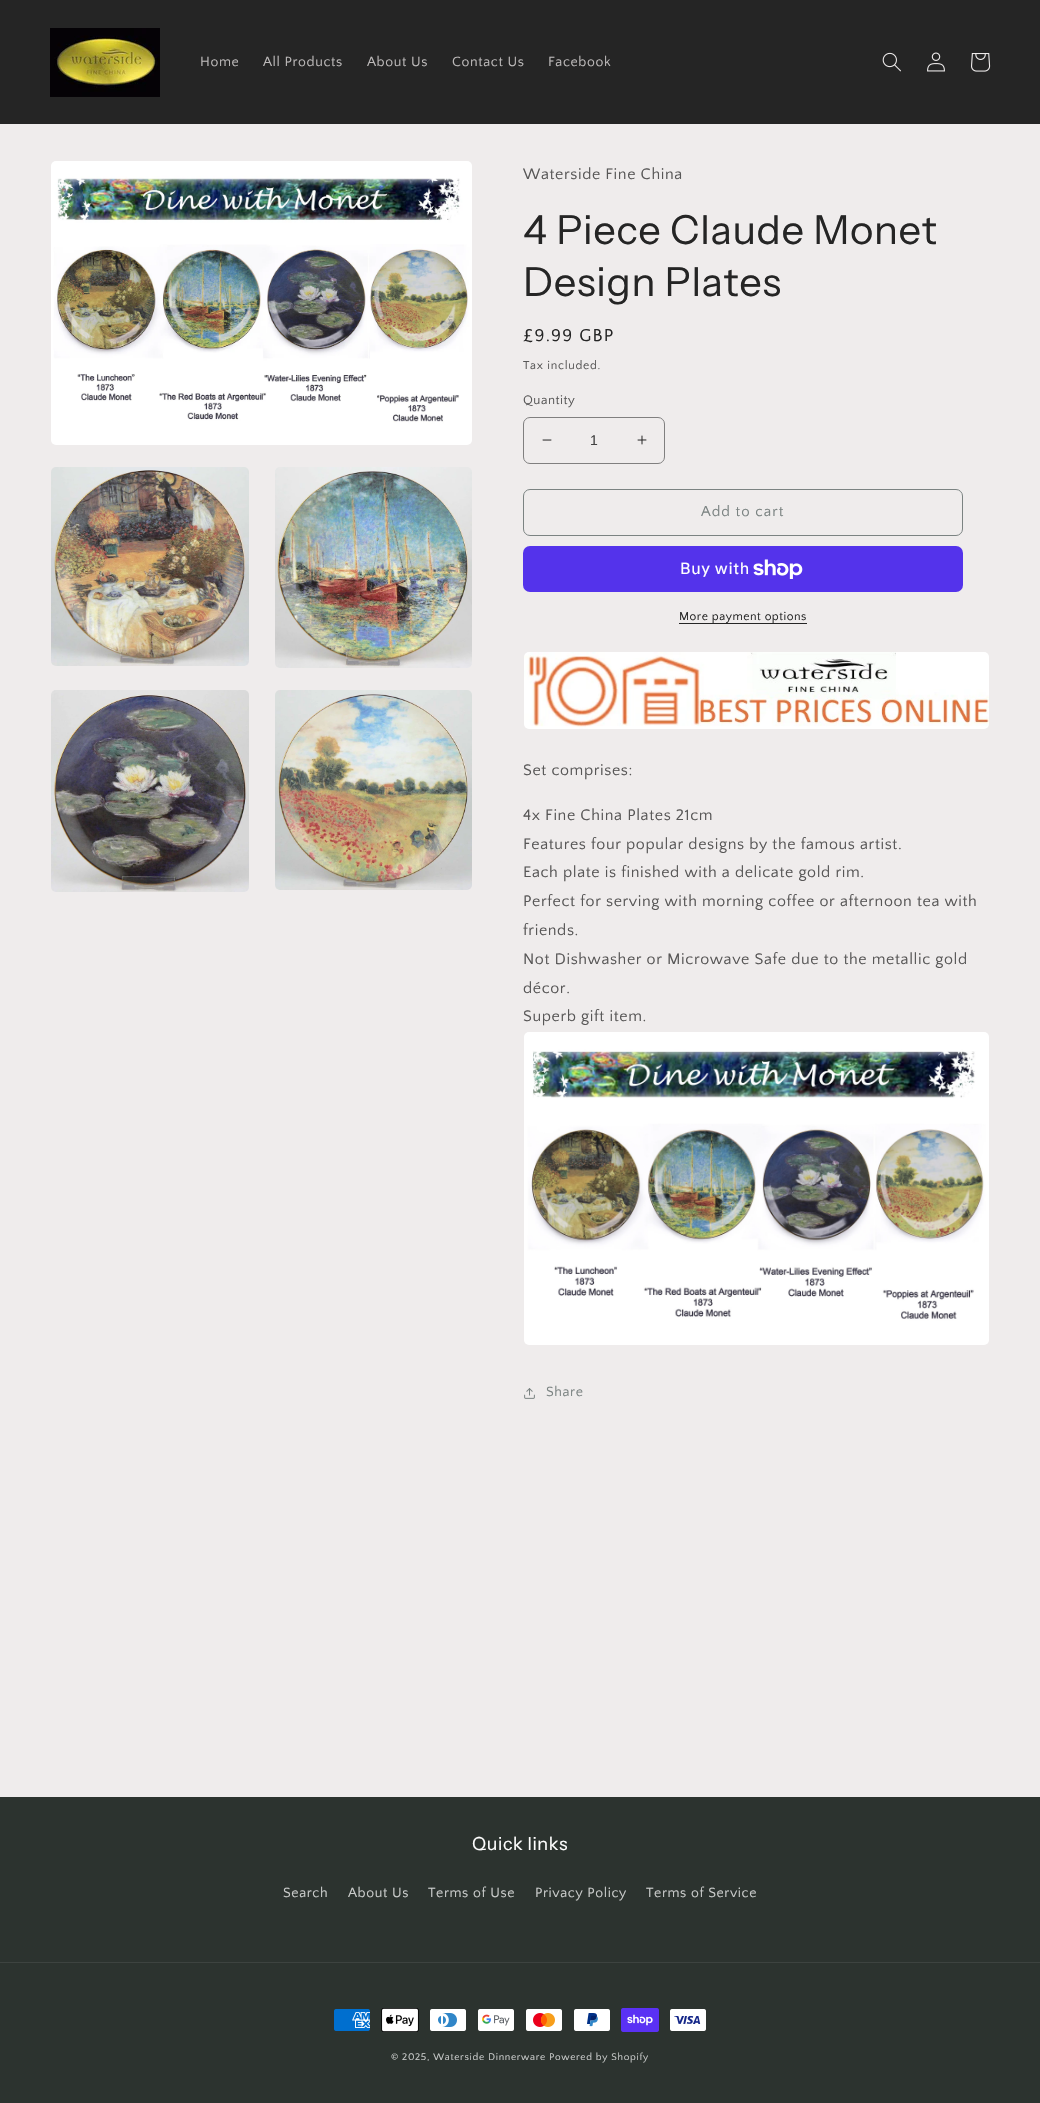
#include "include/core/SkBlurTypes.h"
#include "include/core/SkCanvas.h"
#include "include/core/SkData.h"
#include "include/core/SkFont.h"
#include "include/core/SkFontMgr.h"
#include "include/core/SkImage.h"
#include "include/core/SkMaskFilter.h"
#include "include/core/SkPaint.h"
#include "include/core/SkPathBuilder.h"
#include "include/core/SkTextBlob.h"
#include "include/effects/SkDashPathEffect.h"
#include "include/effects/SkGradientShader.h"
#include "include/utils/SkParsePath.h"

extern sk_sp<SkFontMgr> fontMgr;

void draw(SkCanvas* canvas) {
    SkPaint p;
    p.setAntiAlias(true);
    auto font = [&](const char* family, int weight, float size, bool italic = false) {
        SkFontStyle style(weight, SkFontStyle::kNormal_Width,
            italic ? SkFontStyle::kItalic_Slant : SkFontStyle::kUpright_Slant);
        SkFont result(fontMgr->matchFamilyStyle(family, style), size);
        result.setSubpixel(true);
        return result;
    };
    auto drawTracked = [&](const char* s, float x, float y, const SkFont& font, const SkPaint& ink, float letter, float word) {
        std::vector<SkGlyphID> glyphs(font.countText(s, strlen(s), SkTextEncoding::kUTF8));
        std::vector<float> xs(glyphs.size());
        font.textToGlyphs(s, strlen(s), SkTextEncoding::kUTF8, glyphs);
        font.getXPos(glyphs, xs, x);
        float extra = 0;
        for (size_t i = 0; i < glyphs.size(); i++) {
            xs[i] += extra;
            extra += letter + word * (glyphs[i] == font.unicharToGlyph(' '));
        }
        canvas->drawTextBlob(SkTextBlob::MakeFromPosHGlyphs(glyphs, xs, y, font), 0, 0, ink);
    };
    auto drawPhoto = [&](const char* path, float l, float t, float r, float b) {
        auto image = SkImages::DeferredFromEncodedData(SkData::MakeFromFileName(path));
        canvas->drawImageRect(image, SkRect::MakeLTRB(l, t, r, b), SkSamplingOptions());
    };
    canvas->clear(0xFFEFECEC);
    p.setColor(0xFF252525);
    canvas->drawRect(SkRect::MakeLTRB(0, 0, 1040, 124), p);
    drawPhoto("media/1.png", 50, 28, 160, 97);
    auto font1 = font("Quattrocento Sans", 400, 14);
    p.setColor(0xFFBDBABA);
    {
        const struct { const char* s; float x, y; } items[] = {
            {"Home", 200, 66},
            {"All Products", 263, 66},
            {"About Us", 367, 66},
            {"Contact Us", 452, 66},
            {"Facebook", 548, 66},
        };
        for (auto [s, x, y] : items) {
            drawTracked(s, x, y, font1, p, 0.6f, 0);
        }
    }
    drawPhoto("media/2.png", 882, 52, 901, 72);
    drawPhoto("media/3.png", 927, 52, 945, 72);
    drawPhoto("media/4.png", 971, 53, 991, 72);
    drawPhoto("media/5.png", 51, 161, 472, 445);
    drawPhoto("media/6.png", 51, 467, 249, 666);
    drawPhoto("media/7.png", 275, 467, 472, 668);
    drawPhoto("media/8.png", 51, 690, 249, 892);
    drawPhoto("media/9.png", 275, 690, 472, 890);
    auto font2 = font("Quattrocento Sans", 400, 16);
    p.setColor(0xFF585757);
    drawTracked("Waterside Fine China", 523, 179, font2, p, 0.6f, 0);
    auto font3 = font("Instrument Sans", 400, 40);
    p.setColor(0xFF252525);
    drawTracked("4 Piece Claude Monet", 523, 244, font3, p, 0.6f, 0);
    drawTracked("Design Plates", 523, 296, font3, p, 0.6f, 0);
    auto font4 = font("Quattrocento Sans", 400, 18);
    drawTracked("£9.99 GBP", 523, 341, font4, p, 1.25f, 0);
    auto font5 = font("Quattrocento Sans", 400, 12);
    p.setColor(0xFF585757);
    drawTracked("Tax included.", 523, 369, font5, p, 0.7f, 0);
    auto font6 = font("Quattrocento Sans", 400, 13);
    drawTracked("Quantity", 523, 404, font6, p, 0.5f, 0);
    drawPhoto("media/10.png", 542, 439, 552, 441);
    drawPhoto("media/11.png", 637, 435, 647, 445);
    p.setStyle(SkPaint::kStroke_Style);
    p.setStrokeWidth(1);
    p.setColor(0xFF807F7F);
    canvas->drawRoundRect(SkRect::MakeLTRB(523.5f, 417.5f, 664.5f, 463.5f), 6.5f, 6.5f, p);
    auto font7 = font("Liberation Sans", 400, 14);
    p.setStyle(SkPaint::kFill_Style);
    p.setColor(0xFF434343);
    canvas->drawString("1", 590, 445, font7, p);
    p.setStyle(SkPaint::kStroke_Style);
    p.setColor(0xFF7B8382);
    canvas->drawRoundRect(SkRect::MakeLTRB(523.5f, 489.5f, 962.5f, 535.5f), 6.5f, 6.5f, p);
    auto font8 = font("Quattrocento Sans", 400, 15);
    p.setStyle(SkPaint::kFill_Style);
    drawTracked("Add to cart", 701, 516, font8, p, 1, 0);
    p.setColor(0xFF5433EB);
    canvas->drawRoundRect(SkRect::MakeLTRB(523, 546, 963, 592), 7, 7, p);
    auto font9 = font("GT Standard", 400, 16);
    p.setColor(0xFFFFFFFF);
    drawTracked("Buy with", 680, 574, font9, p, 0.6f, 0);
    drawPhoto("media/12.png", 753, 559, 803, 579);
    p.setColor(0xFF252525);
    canvas->drawRect(SkRect::MakeLTRB(679, 623, 807, 624), p);
    drawTracked("More payment options", 679, 620, font5, p, 0.5f, 0);
    drawPhoto("media/13.png", 524, 652, 989, 729);
    p.setColor(0xFF585757);
    {
        const struct { const char* s; float x, y; } items[] = {
            {"Set comprises:", 523, 775},
            {"4x Fine China Plates 21cm", 523, 820},
            {"Features four popular designs by the famous artist.", 523, 849},
            {"Each plate is finished with a delicate gold rim.", 523, 877},
            {"Perfect for serving with morning coffee or afternoon tea with", 523, 906},
            {"friends.", 523, 935},
            {"Not Dishwasher or Microwave Safe due to the metallic gold", 523, 964},
            {"décor.", 523, 993},
            {"Superb gift item.", 523, 1021},
        };
        for (auto [s, x, y] : items) {
            drawTracked(s, x, y, font2, p, 0.6f, 0);
        }
    }
    drawPhoto("media/14.png", 524, 1032, 989, 1345);
    drawPhoto("media/15.png", 524, 1388, 535, 1399);
    p.setColor(0xFF7B8382);
    drawTracked("Share", 546, 1396, font1, p, 0.6f, 0);
    p.setColor(0xFF2C332F);
    canvas->drawRect(SkRect::MakeLTRB(0, 1797, 1040, 2103), p);
    auto font10 = font("Instrument Sans", 400, 18);
    p.setColor(0xFFFFFFFF);
    drawTracked("Quick links", 472, 1850, font10, p, 0.6f, 0);
    p.setColor(0xFFCACCCB);
    {
        const struct { const char* s; float x, y; } items[] = {
            {"Search", 283, 1897},
            {"About Us", 348, 1897},
            {"Terms of Use", 428, 1897},
            {"Privacy Policy", 535, 1897},
            {"Terms of Service", 646, 1897},
        };
        for (auto [s, x, y] : items) {
            drawTracked(s, x, y, font1, p, 0.6f, 0);
        }
    }
    p.setColor(0xFF3D4340);
    canvas->drawRect(SkRect::MakeLTRB(0, 1962, 1040, 1963), p);
    drawPhoto("media/16.png", 334, 2009, 370, 2031);
    drawPhoto("media/17.png", 381, 2008, 419, 2032);
    drawPhoto("media/18.png", 430, 2009, 466, 2031);
    drawPhoto("media/19.png", 478, 2009, 514, 2031);
    drawPhoto("media/20.png", 526, 2009, 562, 2031);
    drawPhoto("media/21.png", 574, 2009, 610, 2031);
    drawPhoto("media/22.png", 621, 2008, 659, 2032);
    drawPhoto("media/23.png", 670, 2009, 706, 2031);
    auto font11 = font("Quattrocento Sans", 400, 10);
    p.setColor(0xFFCACCCB);
    drawTracked("© 2025, Waterside Dinnerware", 391, 2060, font11, p, 0.7f, 0);
    drawTracked("Powered by Shopify", 549, 2060, font11, p, 0.7f, 0);
}
